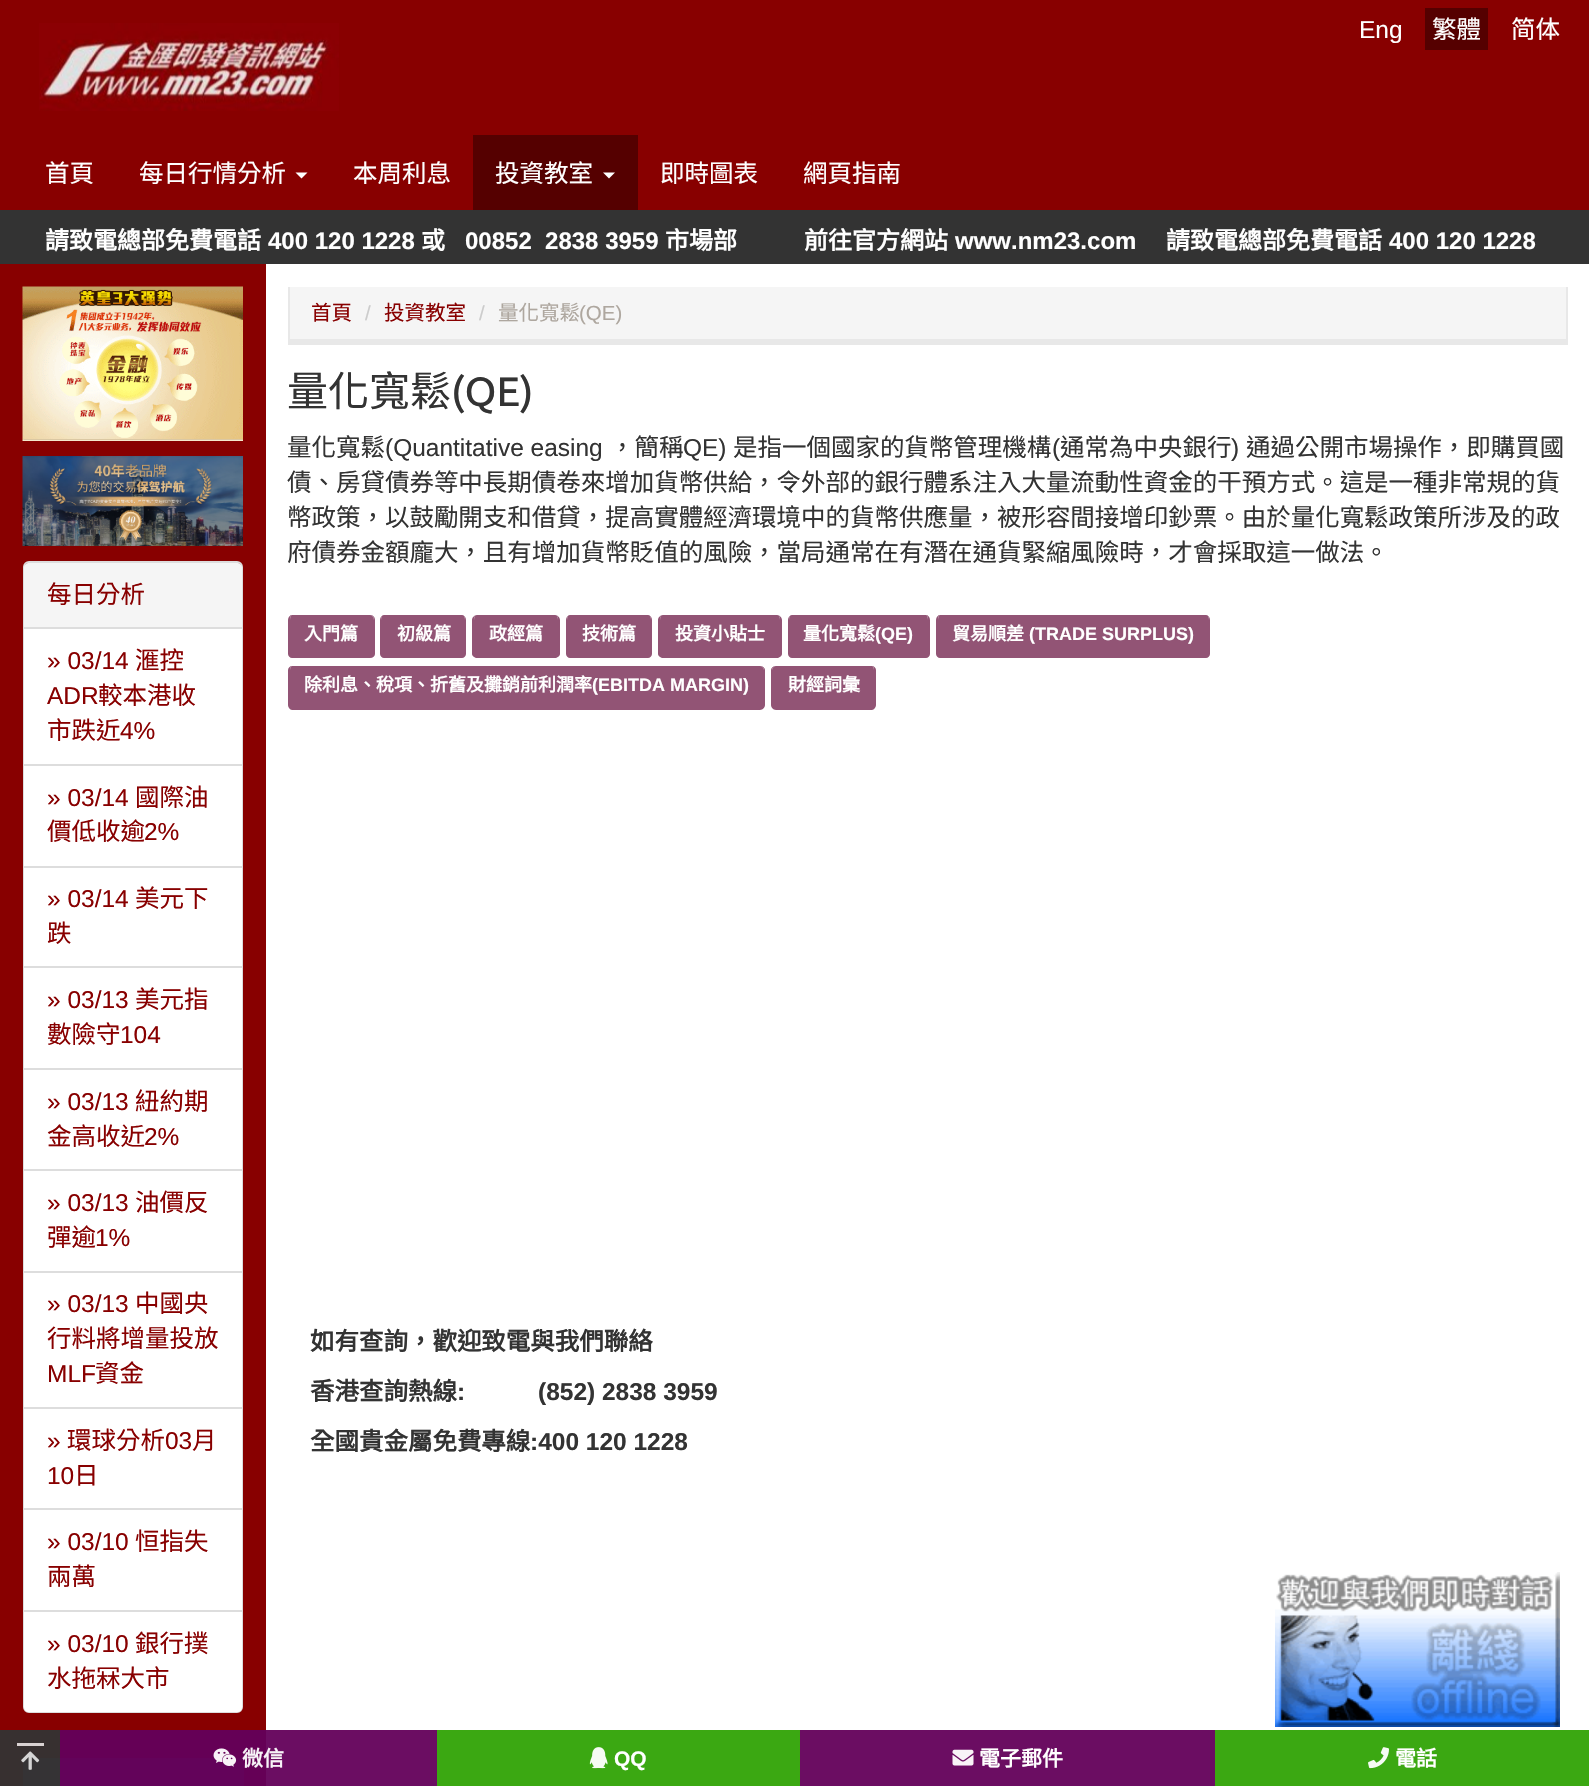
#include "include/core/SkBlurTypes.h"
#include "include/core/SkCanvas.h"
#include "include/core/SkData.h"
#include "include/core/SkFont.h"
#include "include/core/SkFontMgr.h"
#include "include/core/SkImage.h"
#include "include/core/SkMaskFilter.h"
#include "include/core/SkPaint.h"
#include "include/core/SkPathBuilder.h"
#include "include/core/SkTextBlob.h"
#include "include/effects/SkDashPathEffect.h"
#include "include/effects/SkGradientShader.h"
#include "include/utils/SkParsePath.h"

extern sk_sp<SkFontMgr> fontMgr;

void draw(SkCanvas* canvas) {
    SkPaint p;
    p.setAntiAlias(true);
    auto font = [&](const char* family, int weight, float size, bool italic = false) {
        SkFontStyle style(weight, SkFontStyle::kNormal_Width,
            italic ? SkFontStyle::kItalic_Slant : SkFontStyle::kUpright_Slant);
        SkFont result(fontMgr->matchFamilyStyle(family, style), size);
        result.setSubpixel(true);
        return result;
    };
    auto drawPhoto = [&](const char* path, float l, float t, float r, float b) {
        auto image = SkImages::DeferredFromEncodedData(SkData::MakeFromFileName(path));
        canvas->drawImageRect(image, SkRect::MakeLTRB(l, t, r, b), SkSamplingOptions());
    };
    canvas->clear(0xFFFFFFFF);
    p.setColor(0xFF6B0D62);
    canvas->drawRect(SkRect::MakeLTRB(266, 1730, 437, 1786), p);
    p.setColor(0xFF880000);
    canvas->drawRect(SkRect::MakeLTRB(0, 0, 1589, 210), p);
    auto font1 = font("Liberation Sans", 400, 24.48f);
    p.setColor(0xFFFFFFFF);
    canvas->drawString("Eng", 1359, 38, font1, p);
    p.setColor(0xFF550000);
    canvas->drawRect(SkRect::MakeLTRB(1425, 8, 1488, 50), p);
    auto font2 = font("Noto Sans CJK TC", 400, 24.48f);
    p.setColor(0xFFFFFFFF);
    {
        const struct { const char* s; float x, y; } items[] = {
            {"繁體", 1432, 38},
            {"简体", 1511, 38},
            {"首頁", 45, 182},
            {"每日行情分析", 139, 182},
        };
        for (auto [s, x, y] : items) {
            canvas->drawString(s, x, y, font2, p);
        }
    }
    canvas->drawPath(SkPathBuilder().moveTo(295.5f, 172.5f).lineTo(307.5f, 172.5f).lineTo(301.5f, 178.5f).close().detach(), p);
    canvas->drawString("本周利息", 353, 182, font2, p);
    p.setColor(0xFF550000);
    canvas->drawRect(SkRect::MakeLTRB(473, 135, 638, 210), p);
    p.setColor(0xFFFFFFFF);
    canvas->drawString("投資教室", 495, 182, font2, p);
    canvas->drawPath(SkPathBuilder().moveTo(603, 172.5f).lineTo(615, 172.5f).lineTo(609, 178.5f).close().detach(), p);
    canvas->drawString("即時圖表", 660, 182, font2, p);
    canvas->drawString("網頁指南", 803, 182, font2, p);
    drawPhoto("media/1.png", 39, 23, 339, 111);
    p.setColor(0xFF333333);
    canvas->drawRect(SkRect::MakeLTRB(0, 210, 1589, 264), p);
    auto font3 = font("Noto Sans CJK TC", 700, 24);
    p.setColor(0xFFFFFFFF);
    canvas->drawString("請致電總部免費電話", 45, 249, font3, p);
    auto font4 = font("Liberation Sans", 700, 24);
    canvas->drawString("400 120 1228", 268, 249, font4, p);
    canvas->drawString("或", 421, 249, font3, p);
    canvas->drawString("00852  2838 3959", 465, 249, font4, p);
    canvas->drawString("市場部", 665, 249, font3, p);
    canvas->drawString("前往官方網站", 804, 249, font3, p);
    canvas->drawString("www.nm23.com", 955, 249, font4, p);
    canvas->drawString("請致電總部免費電話", 1166, 249, font3, p);
    canvas->drawString("400 120 1228", 1389, 249, font4, p);
    {
        const struct { float l, t, r, b; SkColor color; } items[] = {
            {0, 264, 266, 1730, 0xFF880000},
            {60, 1730, 266, 1786, 0xFF650056},
            {0, 1730, 60, 1786, 0xFF373030},
        };
        for (auto [l, t, r, b, color] : items) {
            p.setColor(color);
            canvas->drawRect(SkRect::MakeLTRB(l, t, r, b), p);
        }
    }
    drawPhoto("media/2.png", 22, 286, 243, 441);
    drawPhoto("media/3.png", 22, 456, 243, 546);
    p.setStyle(SkPaint::kStroke_Style);
    p.setStrokeWidth(2);
    p.setColor(0xFFDDDDDD);
    canvas->drawRoundRect(SkRect::MakeLTRB(24, 562, 242, 1712), 5, 5, p);
    p.setStyle(SkPaint::kFill_Style);
    p.setColor(0xFFF5F5F5);
    canvas->drawPath(SkPathBuilder().moveTo(29, 563).lineTo(237, 563).cubicTo(240, 563, 242, 565, 242, 568).lineTo(242, 629).lineTo(24, 629).lineTo(24, 568).cubicTo(24, 565, 26, 563, 29, 563).close().detach(), p);
    p.setColor(0xFFDDDDDD);
    canvas->drawRect(SkRect::MakeLTRB(24, 627, 242, 629), p);
    p.setColor(0xFF880000);
    canvas->drawString("每日分析", 47, 603, font2, p);
    p.setColor(0xFFFFFFFF);
    canvas->drawRect(SkRect::MakeLTRB(24, 629, 242, 764), p);
    p.setColor(0xFF880000);
    canvas->drawString("» 03/14", 47, 669, font1, p);
    canvas->drawString("滙控", 135, 669, font2, p);
    canvas->drawString("ADR", 47, 704, font1, p);
    canvas->drawString("較本港收", 98, 704, font2, p);
    canvas->drawString("市跌近", 47, 739, font2, p);
    canvas->drawString("4%", 120, 739, font1, p);
    p.setColor(0xFFFFFFFF);
    canvas->drawRect(SkRect::MakeLTRB(24, 766, 242, 866), p);
    p.setColor(0xFFDDDDDD);
    canvas->drawRect(SkRect::MakeLTRB(24, 764, 242, 766), p);
    p.setColor(0xFF880000);
    canvas->drawString("» 03/14", 47, 806, font1, p);
    canvas->drawString("國際油", 135, 806, font2, p);
    canvas->drawString("價低收逾", 47, 840, font2, p);
    canvas->drawString("2%", 144, 840, font1, p);
    {
        const struct { float l, t, r, b; SkColor color; } items[] = {
            {24, 868, 242, 966, 0xFFFFFFFF},
            {24, 866, 242, 868, 0xFFDDDDDD},
            {24, 966, 242, 968, 0xFFDDDDDD},
        };
        for (auto [l, t, r, b, color] : items) {
            p.setColor(color);
            canvas->drawRect(SkRect::MakeLTRB(l, t, r, b), p);
        }
    }
    p.setColor(0xFF880000);
    canvas->drawString("» 03/14", 47, 907, font1, p);
    canvas->drawString("美元下", 135, 907, font2, p);
    canvas->drawString("跌", 47, 942, font2, p);
    p.setColor(0xFFFFFFFF);
    canvas->drawRect(SkRect::MakeLTRB(24, 968, 242, 1068), p);
    p.setColor(0xFFDDDDDD);
    canvas->drawRect(SkRect::MakeLTRB(24, 1068, 242, 1070), p);
    p.setColor(0xFF880000);
    canvas->drawString("» 03/13", 47, 1008, font1, p);
    canvas->drawString("美元指", 135, 1008, font2, p);
    canvas->drawString("數險守", 47, 1043, font2, p);
    canvas->drawString("104", 120, 1043, font1, p);
    p.setColor(0xFFFFFFFF);
    canvas->drawRect(SkRect::MakeLTRB(24, 1070, 242, 1169), p);
    p.setColor(0xFF880000);
    canvas->drawString("» 03/13", 47, 1110, font1, p);
    canvas->drawString("紐約期", 135, 1110, font2, p);
    canvas->drawString("金高收近", 47, 1145, font2, p);
    canvas->drawString("2%", 144, 1145, font1, p);
    p.setColor(0xFFFFFFFF);
    canvas->drawRect(SkRect::MakeLTRB(24, 1171, 242, 1271), p);
    p.setColor(0xFFDDDDDD);
    canvas->drawRect(SkRect::MakeLTRB(24, 1169, 242, 1171), p);
    p.setColor(0xFF880000);
    canvas->drawString("» 03/13", 47, 1211, font1, p);
    canvas->drawString("油價反", 135, 1211, font2, p);
    canvas->drawString("彈逾", 47, 1246, font2, p);
    canvas->drawString("1%", 95, 1246, font1, p);
    {
        const struct { float l, t, r, b; SkColor color; } items[] = {
            {24, 1273, 242, 1407, 0xFFFFFFFF},
            {24, 1271, 242, 1273, 0xFFDDDDDD},
            {24, 1407, 242, 1409, 0xFFDDDDDD},
        };
        for (auto [l, t, r, b, color] : items) {
            p.setColor(color);
            canvas->drawRect(SkRect::MakeLTRB(l, t, r, b), p);
        }
    }
    p.setColor(0xFF880000);
    canvas->drawString("» 03/13", 47, 1312, font1, p);
    canvas->drawString("中國央", 135, 1312, font2, p);
    canvas->drawString("行料將增量投放", 47, 1347, font2, p);
    canvas->drawString("MLF", 47, 1382, font1, p);
    canvas->drawString("資金", 95, 1382, font2, p);
    p.setColor(0xFFFFFFFF);
    canvas->drawRect(SkRect::MakeLTRB(24, 1409, 242, 1508), p);
    p.setColor(0xFF880000);
    canvas->drawString("»", 47, 1449, font1, p);
    canvas->drawString("環球分析", 67, 1449, font2, p);
    canvas->drawString("03", 165, 1449, font1, p);
    canvas->drawString("月", 192, 1449, font2, p);
    canvas->drawString("10", 47, 1484, font1, p);
    canvas->drawString("日", 74, 1484, font2, p);
    p.setColor(0xFFFFFFFF);
    canvas->drawRect(SkRect::MakeLTRB(24, 1510, 242, 1610), p);
    p.setColor(0xFFDDDDDD);
    canvas->drawRect(SkRect::MakeLTRB(24, 1508, 242, 1510), p);
    p.setColor(0xFF880000);
    canvas->drawString("» 03/10", 47, 1550, font1, p);
    canvas->drawString("恒指失", 135, 1550, font2, p);
    canvas->drawString("兩萬", 47, 1585, font2, p);
    p.setColor(0xFFFFFFFF);
    canvas->drawPath(SkPathBuilder().moveTo(24, 1610).lineTo(242, 1610).lineTo(242, 1707).cubicTo(242, 1710, 240, 1712, 237, 1712).lineTo(29, 1712).cubicTo(26, 1712, 24, 1710, 24, 1707).close().detach(), p);
    p.setColor(0xFFDDDDDD);
    canvas->drawRect(SkRect::MakeLTRB(24, 1610, 242, 1612), p);
    p.setColor(0xFF880000);
    canvas->drawString("» 03/10", 47, 1652, font1, p);
    canvas->drawString("銀行撲", 135, 1652, font2, p);
    canvas->drawString("水拖冧大市", 47, 1687, font2, p);
    {
        const struct { float l, t, r, b; SkColor color; } items[] = {
            {60, 1758, 244, 1786, 0xFF63035A},
            {23, 1758, 60, 1786, 0xFF353335},
            {290, 287, 1566, 339, 0xFFF5F5F5},
            {1566, 287, 1568, 345, 0xFFE8E8E8},
            {288, 339, 1568, 345, 0xFFE8E8E8},
            {288, 287, 290, 345, 0xFFE8E8E8},
        };
        for (auto [l, t, r, b, color] : items) {
            p.setColor(color);
            canvas->drawRect(SkRect::MakeLTRB(l, t, r, b), p);
        }
    }
    auto font5 = font("Noto Sans CJK TC", 400, 20.5f);
    p.setColor(0xFF880000);
    canvas->drawString("首頁", 311, 320, font5, p);
    auto font6 = font("Liberation Sans", 400, 20.5f);
    p.setColor(0xFFCCCCCC);
    canvas->drawString("/", 365, 320, font6, p);
    p.setColor(0xFF880000);
    canvas->drawString("投資教室", 384, 320, font5, p);
    p.setColor(0xFFCCCCCC);
    canvas->drawString("/", 479, 320, font6, p);
    p.setColor(0xFFAEA79F);
    canvas->drawString("量化寬鬆", 498, 320, font5, p);
    canvas->drawString("(QE)", 579, 320, font6, p);
    auto font7 = font("Noto Sans CJK TC", 400, 41);
    p.setColor(0xFF333333);
    canvas->drawString("量化寬鬆", 287, 406, font7, p);
    auto font8 = font("Ubuntu", 500, 41);
    canvas->drawString("(QE)", 451, 406, font8, p);
    canvas->drawString("量化寬鬆", 287, 456, font2, p);
    canvas->drawString("(Quantitative easing", 385, 456, font1, p);
    canvas->drawString("，簡稱", 610, 456, font2, p);
    canvas->drawString("QE)", 683, 456, font1, p);
    canvas->drawString("是指一個國家的貨幣管理機構", 733, 456, font2, p);
    canvas->drawString("(", 1052, 456, font1, p);
    canvas->drawString("通常為中央銀行", 1060, 456, font2, p);
    canvas->drawString(")", 1231, 456, font1, p);
    {
        const struct { const char* s; float x, y; } items[] = {
            {"通過公開市場操作，即購買國", 1246, 456},
            {"債、房貸債券等中長期債卷來增加貨幣供給，令外部的銀行體系注入大量流動性資金的干預方式。這是一種非常規的貨", 287, 491},
            {"幣政策，以鼓勵開支和借貸，提高實體經濟環境中的貨幣供應量，被形容間接增印鈔票。由於量化寬鬆政策所涉及的政", 287, 526},
            {"府債券金額龐大，且有增加貨幣貶值的風險，當局通常在有潛在通貨緊縮風險時，才會採取這一做法。", 287, 561},
        };
        for (auto [s, x, y] : items) {
            canvas->drawString(s, x, y, font2, p);
        }
    }
    p.setColor(0xFF925475);
    canvas->drawPath(SkPathBuilder().moveTo(292, 615).lineTo(370, 615).cubicTo(372, 615, 374, 617, 374, 620).lineTo(374, 654).lineTo(290, 654).lineTo(290, 620).cubicTo(290, 617, 291, 615, 292, 615).close().detach(), p);
    canvas->drawPath(SkPathBuilder(SkPathFillType::kEvenOdd).moveTo(292, 615).lineTo(370, 615).cubicTo(373, 615, 375, 617, 375, 620).lineTo(375, 654).cubicTo(375, 656, 373, 658, 370, 658).lineTo(292, 658).cubicTo(290, 658, 288, 656, 288, 654).lineTo(288, 620).cubicTo(288, 617, 290, 615, 292, 615).close().moveTo(292, 615).lineTo(370, 615).cubicTo(372, 615, 374, 617, 374, 620).lineTo(374, 654).lineTo(290, 654).lineTo(290, 620).cubicTo(290, 617, 291, 615, 292, 615).close().detach(), p);
    auto font9 = font("Noto Sans CJK TC", 700, 18);
    p.setColor(0xFFFFFFFF);
    canvas->drawString("入門篇", 304, 640, font9, p);
    p.setColor(0xFF925475);
    canvas->drawPath(SkPathBuilder().moveTo(384, 615).lineTo(462, 615).cubicTo(464, 615, 465, 617, 465, 620).lineTo(465, 654).lineTo(381, 654).lineTo(381, 620).cubicTo(381, 617, 382, 615, 384, 615).close().detach(), p);
    canvas->drawPath(SkPathBuilder(SkPathFillType::kEvenOdd).moveTo(384, 615).lineTo(462, 615).cubicTo(464, 615, 466, 617, 466, 620).lineTo(466, 654).cubicTo(466, 656, 464, 658, 462, 658).lineTo(384, 658).cubicTo(382, 658, 380, 656, 380, 654).lineTo(380, 620).cubicTo(380, 617, 382, 615, 384, 615).close().moveTo(384, 615).lineTo(462, 615).cubicTo(464, 615, 465, 617, 465, 620).lineTo(465, 654).lineTo(381, 654).lineTo(381, 620).cubicTo(381, 617, 382, 615, 384, 615).close().detach(), p);
    p.setColor(0xFFFFFFFF);
    canvas->drawString("初級篇", 397, 640, font9, p);
    p.setColor(0xFF925475);
    canvas->drawPath(SkPathBuilder().moveTo(477, 615).lineTo(555, 615).cubicTo(557, 615, 558, 617, 558, 620).lineTo(558, 654).lineTo(474, 654).lineTo(474, 620).cubicTo(474, 617, 475, 615, 477, 615).close().detach(), p);
    canvas->drawPath(SkPathBuilder(SkPathFillType::kEvenOdd).moveTo(477, 615).lineTo(555, 615).cubicTo(557, 615, 560, 617, 560, 620).lineTo(560, 654).cubicTo(560, 656, 557, 658, 555, 658).lineTo(477, 658).cubicTo(475, 658, 472, 656, 472, 654).lineTo(472, 620).cubicTo(472, 617, 475, 615, 477, 615).close().moveTo(477, 615).lineTo(555, 615).cubicTo(557, 615, 558, 617, 558, 620).lineTo(558, 654).lineTo(474, 654).lineTo(474, 620).cubicTo(474, 617, 475, 615, 477, 615).close().detach(), p);
    p.setColor(0xFFFFFFFF);
    canvas->drawString("政經篇", 489, 640, font9, p);
    p.setColor(0xFF925475);
    canvas->drawPath(SkPathBuilder().moveTo(570, 615).lineTo(648, 615).cubicTo(650, 615, 651, 617, 651, 620).lineTo(651, 654).lineTo(567, 654).lineTo(567, 620).cubicTo(567, 617, 568, 615, 570, 615).close().detach(), p);
    canvas->drawPath(SkPathBuilder(SkPathFillType::kEvenOdd).moveTo(570, 615).lineTo(648, 615).cubicTo(650, 615, 652, 617, 652, 620).lineTo(652, 654).cubicTo(652, 656, 650, 658, 648, 658).lineTo(570, 658).cubicTo(568, 658, 566, 656, 566, 654).lineTo(566, 620).cubicTo(566, 617, 568, 615, 570, 615).close().moveTo(570, 615).lineTo(648, 615).cubicTo(650, 615, 651, 617, 651, 620).lineTo(651, 654).lineTo(567, 654).lineTo(567, 620).cubicTo(567, 617, 568, 615, 570, 615).close().detach(), p);
    p.setColor(0xFFFFFFFF);
    canvas->drawString("技術篇", 582, 640, font9, p);
    p.setColor(0xFF925475);
    canvas->drawPath(SkPathBuilder().moveTo(663, 615).lineTo(777, 615).cubicTo(779, 615, 780, 617, 780, 620).lineTo(780, 654).lineTo(660, 654).lineTo(660, 620).cubicTo(660, 617, 661, 615, 663, 615).close().detach(), p);
    canvas->drawPath(SkPathBuilder(SkPathFillType::kEvenOdd).moveTo(663, 615).lineTo(777, 615).cubicTo(779, 615, 782, 617, 782, 620).lineTo(782, 654).cubicTo(782, 656, 779, 658, 777, 658).lineTo(663, 658).cubicTo(661, 658, 658, 656, 658, 654).lineTo(658, 620).cubicTo(658, 617, 661, 615, 663, 615).close().moveTo(663, 615).lineTo(777, 615).cubicTo(779, 615, 780, 617, 780, 620).lineTo(780, 654).lineTo(660, 654).lineTo(660, 620).cubicTo(660, 617, 661, 615, 663, 615).close().detach(), p);
    p.setColor(0xFFFFFFFF);
    canvas->drawString("投資小貼士", 675, 640, font9, p);
    p.setColor(0xFF925475);
    canvas->drawPath(SkPathBuilder().moveTo(792, 615).lineTo(926, 615).cubicTo(927, 615, 928, 617, 928, 620).lineTo(928, 654).lineTo(789, 654).lineTo(789, 620).cubicTo(789, 617, 790, 615, 792, 615).close().detach(), p);
    canvas->drawPath(SkPathBuilder(SkPathFillType::kEvenOdd).moveTo(792, 615).lineTo(926, 615).cubicTo(928, 615, 930, 617, 930, 620).lineTo(930, 654).cubicTo(930, 656, 928, 658, 926, 658).lineTo(792, 658).cubicTo(790, 658, 788, 656, 788, 654).lineTo(788, 620).cubicTo(788, 617, 790, 615, 792, 615).close().moveTo(792, 615).lineTo(926, 615).cubicTo(927, 615, 928, 617, 928, 620).lineTo(928, 654).lineTo(789, 654).lineTo(789, 620).cubicTo(789, 617, 790, 615, 792, 615).close().detach(), p);
    p.setColor(0xFFFFFFFF);
    canvas->drawString("量化寬鬆", 803, 640, font9, p);
    auto font10 = font("Liberation Sans", 700, 18);
    canvas->drawString("(QE)", 875, 640, font10, p);
    p.setColor(0xFF925475);
    canvas->drawPath(SkPathBuilder().moveTo(940, 615).lineTo(1206, 615).cubicTo(1208, 615, 1209, 617, 1209, 620).lineTo(1209, 654).lineTo(938, 654).lineTo(938, 620).cubicTo(938, 617, 939, 615, 940, 615).close().detach(), p);
    canvas->drawPath(SkPathBuilder(SkPathFillType::kEvenOdd).moveTo(940, 615).lineTo(1206, 615).cubicTo(1208, 615, 1210, 617, 1210, 620).lineTo(1210, 654).cubicTo(1210, 656, 1208, 658, 1206, 658).lineTo(940, 658).cubicTo(938, 658, 936, 656, 936, 654).lineTo(936, 620).cubicTo(936, 617, 938, 615, 940, 615).close().moveTo(940, 615).lineTo(1206, 615).cubicTo(1208, 615, 1209, 617, 1209, 620).lineTo(1209, 654).lineTo(938, 654).lineTo(938, 620).cubicTo(938, 617, 939, 615, 940, 615).close().detach(), p);
    p.setColor(0xFFFFFFFF);
    canvas->drawString("貿易順差", 952, 640, font9, p);
    canvas->drawString("(TRADE SURPLUS)", 1029, 640, font10, p);
    p.setColor(0xFF925475);
    canvas->drawPath(SkPathBuilder().moveTo(292, 666).lineTo(760, 666).cubicTo(762, 666, 764, 668, 764, 670).lineTo(764, 705).lineTo(290, 705).lineTo(290, 670).cubicTo(290, 668, 291, 666, 292, 666).close().detach(), p);
    canvas->drawPath(SkPathBuilder(SkPathFillType::kEvenOdd).moveTo(292, 666).lineTo(760, 666).cubicTo(763, 666, 765, 668, 765, 670).lineTo(765, 705).cubicTo(765, 707, 763, 710, 760, 710).lineTo(292, 710).cubicTo(290, 710, 288, 707, 288, 705).lineTo(288, 670).cubicTo(288, 668, 290, 666, 292, 666).close().moveTo(292, 666).lineTo(760, 666).cubicTo(762, 666, 764, 668, 764, 670).lineTo(764, 705).lineTo(290, 705).lineTo(290, 670).cubicTo(290, 668, 291, 666, 292, 666).close().detach(), p);
    p.setColor(0xFFFFFFFF);
    canvas->drawString("除利息、稅項、折舊及攤銷前利潤率", 304, 691, font9, p);
    canvas->drawString("(EBITDA MARGIN)", 592, 691, font10, p);
    p.setColor(0xFF925475);
    canvas->drawPath(SkPathBuilder().moveTo(776, 666).lineTo(872, 666).cubicTo(873, 666, 874, 668, 874, 670).lineTo(874, 705).lineTo(772, 705).lineTo(772, 670).cubicTo(772, 668, 774, 666, 776, 666).close().detach(), p);
    canvas->drawPath(SkPathBuilder(SkPathFillType::kEvenOdd).moveTo(776, 666).lineTo(872, 666).cubicTo(874, 666, 876, 668, 876, 670).lineTo(876, 705).cubicTo(876, 707, 874, 710, 872, 710).lineTo(776, 710).cubicTo(773, 710, 771, 707, 771, 705).lineTo(771, 670).cubicTo(771, 668, 773, 666, 776, 666).close().moveTo(776, 666).lineTo(872, 666).cubicTo(873, 666, 874, 668, 874, 670).lineTo(874, 705).lineTo(772, 705).lineTo(772, 670).cubicTo(772, 668, 774, 666, 776, 666).close().detach(), p);
    p.setColor(0xFFFFFFFF);
    canvas->drawString("財經詞彙", 788, 691, font9, p);
    auto font11 = font("Noto Sans CJK TC", 700, 24.48f);
    p.setColor(0xFF333333);
    canvas->drawString("如有查詢，歡迎致電與我們聯絡", 310, 1350, font11, p);
    canvas->drawString("香港查詢熱線", 310, 1400, font11, p);
    auto font12 = font("Liberation Sans", 700, 24.48f);
    canvas->drawString(":", 457, 1400, font12, p);
    canvas->drawString("(852) 2838 3959", 538, 1400, font12, p);
    canvas->drawString("全國貴金屬免費專線", 310, 1450, font11, p);
    canvas->drawString(":400 120 1228", 530, 1450, font12, p);
    p.setColor(0xFFD9D2D2);
    canvas->drawRect(SkRect::MakeLTRB(17, 1743, 44, 1746), p);
    drawPhoto("media/4.png", 21, 1751, 40, 1770);
    drawPhoto("media/5.png", 213, 1748, 237, 1767);
    auto font13 = font("Noto Sans CJK TC", 700, 21);
    p.setColor(0xFFF7F3F7);
    canvas->drawString("微信", 242, 1766, font13, p);
    p.setColor(0xFF3BA812);
    canvas->drawRect(SkRect::MakeLTRB(437, 1730, 800, 1786), p);
    drawPhoto("media/6.png", 589, 1747, 608, 1769);
    auto font14 = font("Liberation Sans", 700, 21);
    p.setColor(0xFFFFFFFF);
    canvas->drawString("QQ", 614, 1766, font14, p);
    p.setColor(0xFF6B0D62);
    canvas->drawRect(SkRect::MakeLTRB(800, 1730, 1215, 1786), p);
    drawPhoto("media/7.png", 952, 1749, 974, 1766);
    p.setColor(0xFFFFFFFF);
    canvas->drawString("電子郵件", 979, 1766, font13, p);
    p.setColor(0xFF3BA812);
    canvas->drawRect(SkRect::MakeLTRB(1215, 1730, 1589, 1786), p);
    drawPhoto("media/8.png", 1368, 1747, 1389, 1769);
    p.setColor(0xFFFFFFFF);
    canvas->drawString("電話", 1395, 1766, font13, p);
    drawPhoto("media/9.png", 1275, 1572, 1560, 1727);
}
